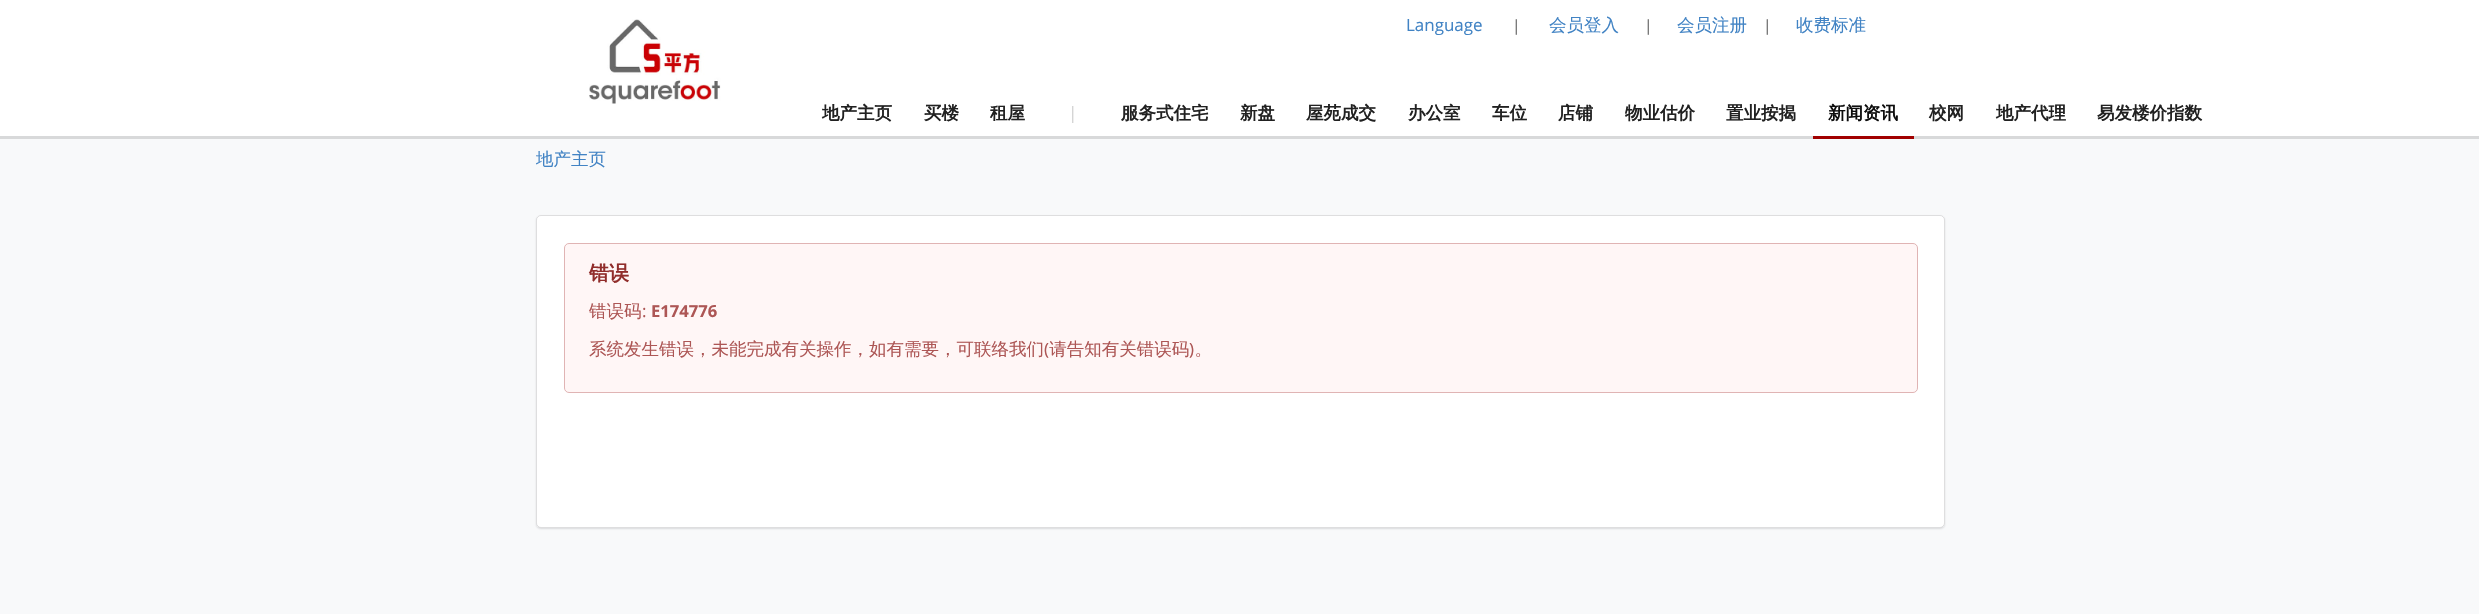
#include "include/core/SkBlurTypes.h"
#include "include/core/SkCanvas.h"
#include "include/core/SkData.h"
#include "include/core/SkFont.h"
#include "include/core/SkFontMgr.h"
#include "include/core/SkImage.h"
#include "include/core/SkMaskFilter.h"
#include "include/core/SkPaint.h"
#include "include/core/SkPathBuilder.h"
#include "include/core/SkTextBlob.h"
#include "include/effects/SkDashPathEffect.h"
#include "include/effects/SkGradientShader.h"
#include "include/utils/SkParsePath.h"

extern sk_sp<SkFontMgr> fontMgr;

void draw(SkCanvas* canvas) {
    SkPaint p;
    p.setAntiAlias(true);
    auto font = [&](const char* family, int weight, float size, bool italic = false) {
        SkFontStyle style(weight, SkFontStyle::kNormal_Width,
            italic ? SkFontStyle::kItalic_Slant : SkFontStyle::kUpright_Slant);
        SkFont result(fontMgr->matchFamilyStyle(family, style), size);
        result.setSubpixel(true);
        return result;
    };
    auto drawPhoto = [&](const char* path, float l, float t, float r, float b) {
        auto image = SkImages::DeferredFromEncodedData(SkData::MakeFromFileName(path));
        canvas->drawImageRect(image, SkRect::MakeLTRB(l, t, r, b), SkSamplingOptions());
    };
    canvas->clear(0xFFFFFFFF);
    drawPhoto("media/1.png", 589, 19, 721, 104);
    auto font1 = font("Open Sans", 400, 17.5f);
    p.setColor(0xFF4183C4);
    canvas->drawString("Language", 1406, 31, font1, p);
    auto font2 = font("Open Sans", 400, 16);
    p.setColor(0xFF666666);
    canvas->drawString("|", 1512, 31, font2, p);
    auto font3 = font("WenQuanYi Zen Hei", 500, 17.5f);
    p.setColor(0xFF4183C4);
    canvas->drawString("会员登入", 1549, 31, font3, p);
    p.setColor(0xFF666666);
    canvas->drawString("|", 1644, 31, font2, p);
    p.setColor(0xFF4183C4);
    canvas->drawString("会员注册", 1677, 31, font3, p);
    p.setColor(0xFF666666);
    canvas->drawString("|", 1763, 31, font2, p);
    p.setColor(0xFF4183C4);
    canvas->drawString("收费标准", 1796, 31, font3, p);
    auto font4 = font("WenQuanYi Zen Hei", 700, 17.5f);
    p.setColor(0xFF212121);
    {
        const struct { const char* s; float x, y; } items[] = {
            {"地产主页", 822, 119},
            {"买楼", 924, 119},
            {"租屋", 990, 119},
        };
        for (auto [s, x, y] : items) {
            canvas->drawString(s, x, y, font4, p);
        }
    }
    p.setColor(0xFFD3D3D3);
    canvas->drawString("|", 1068, 119, font1, p);
    p.setColor(0xFF212121);
    {
        const struct { const char* s; float x, y; } items[] = {
            {"服务式住宅", 1121, 119},
            {"新盘", 1240, 119},
            {"屋苑成交", 1306, 119},
            {"办公室", 1408, 119},
            {"车位", 1492, 119},
            {"店铺", 1558, 119},
            {"物业估价", 1625, 119},
            {"置业按揭", 1726, 119},
        };
        for (auto [s, x, y] : items) {
            canvas->drawString(s, x, y, font4, p);
        }
    }
    p.setColor(0xFFD8D9DA);
    canvas->drawRect(SkRect::MakeLTRB(0, 136, 2479, 139), p);
    p.setColor(0xFFA10000);
    canvas->drawRect(SkRect::MakeLTRB(1813, 136, 1914, 139), p);
    p.setColor(0xFF0D0D0D);
    canvas->drawString("新闻资讯", 1828, 119, font4, p);
    p.setColor(0xFF212121);
    {
        const struct { const char* s; float x, y; } items[] = {
            {"校网", 1929, 119},
            {"地产代理", 1996, 119},
            {"易发楼价指数", 2097, 119},
        };
        for (auto [s, x, y] : items) {
            canvas->drawString(s, x, y, font4, p);
        }
    }
    p.setColor(0xFFF8F9FA);
    canvas->drawRect(SkRect::MakeLTRB(0, 139, 2479, 614), p);
    p.setColor(0xFF4183C4);
    canvas->drawString("地产主页", 536, 165, font3, p);
    p.setColor(0x26222426);
    p.setMaskFilter(SkMaskFilter::MakeBlur(kNormal_SkBlurStyle, 1));
    canvas->drawRoundRect(SkRect::MakeLTRB(536, 216, 1945, 529), 5, 5, p);
    p.setMaskFilter(nullptr);
    p.setColor(0xFFFFFFFF);
    canvas->drawRoundRect(SkRect::MakeLTRB(536, 215, 1945, 528), 5, 5, p);
    p.setStyle(SkPaint::kStroke_Style);
    p.setStrokeWidth(1);
    p.setColor(0x26222426);
    canvas->drawRoundRect(SkRect::MakeLTRB(536.5f, 215.5f, 1944.5f, 527.5f), 4.5f, 4.5f, p);
    p.setStyle(SkPaint::kFill_Style);
    p.setColor(0xFFFFF6F6);
    canvas->drawRoundRect(SkRect::MakeLTRB(564.5f, 243.5f, 1917.5f, 392.5f), 4.5f, 4.5f, p);
    p.setStyle(SkPaint::kStroke_Style);
    p.setColor(0xFFE0B4B4);
    canvas->drawRoundRect(SkRect::MakeLTRB(564.5f, 243.5f, 1917.5f, 392.5f), 4.5f, 4.5f, p);
    auto font5 = font("WenQuanYi Zen Hei", 700, 20);
    p.setStyle(SkPaint::kFill_Style);
    p.setColor(0xFF912D2B);
    canvas->drawString("错误", 589, 280, font5, p);
    p.setColor(0xFFAD5655);
    canvas->drawString("错误码", 589, 317, font3, p);
    canvas->drawString(":", 642, 317, font1, p);
    auto font6 = font("Open Sans", 700, 17.5f);
    canvas->drawString("E174776", 651, 317, font6, p);
    canvas->drawString("系统发生错误，未能完成有关操作，如有需要，可联络我们 请告知有关错误码 。", 589, 355, font3, p);
    canvas->drawString("(", 1044, 355, font1, p);
    canvas->drawString(")", 1189, 355, font1, p);
}
